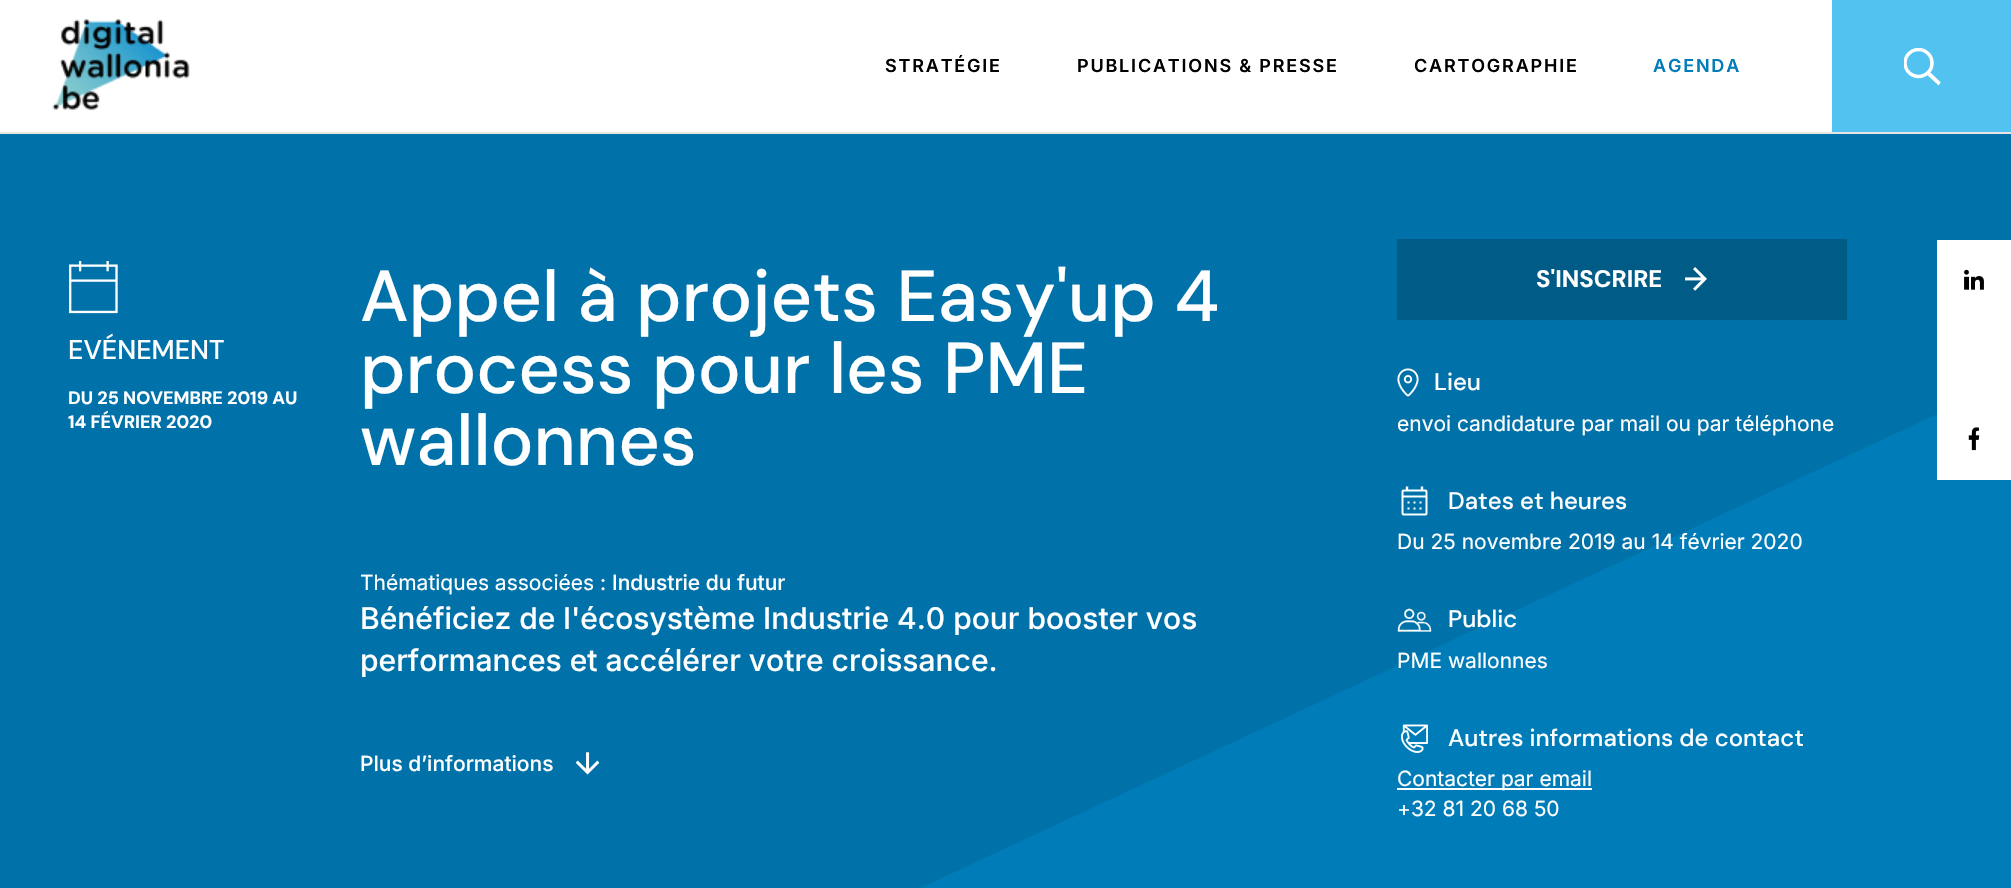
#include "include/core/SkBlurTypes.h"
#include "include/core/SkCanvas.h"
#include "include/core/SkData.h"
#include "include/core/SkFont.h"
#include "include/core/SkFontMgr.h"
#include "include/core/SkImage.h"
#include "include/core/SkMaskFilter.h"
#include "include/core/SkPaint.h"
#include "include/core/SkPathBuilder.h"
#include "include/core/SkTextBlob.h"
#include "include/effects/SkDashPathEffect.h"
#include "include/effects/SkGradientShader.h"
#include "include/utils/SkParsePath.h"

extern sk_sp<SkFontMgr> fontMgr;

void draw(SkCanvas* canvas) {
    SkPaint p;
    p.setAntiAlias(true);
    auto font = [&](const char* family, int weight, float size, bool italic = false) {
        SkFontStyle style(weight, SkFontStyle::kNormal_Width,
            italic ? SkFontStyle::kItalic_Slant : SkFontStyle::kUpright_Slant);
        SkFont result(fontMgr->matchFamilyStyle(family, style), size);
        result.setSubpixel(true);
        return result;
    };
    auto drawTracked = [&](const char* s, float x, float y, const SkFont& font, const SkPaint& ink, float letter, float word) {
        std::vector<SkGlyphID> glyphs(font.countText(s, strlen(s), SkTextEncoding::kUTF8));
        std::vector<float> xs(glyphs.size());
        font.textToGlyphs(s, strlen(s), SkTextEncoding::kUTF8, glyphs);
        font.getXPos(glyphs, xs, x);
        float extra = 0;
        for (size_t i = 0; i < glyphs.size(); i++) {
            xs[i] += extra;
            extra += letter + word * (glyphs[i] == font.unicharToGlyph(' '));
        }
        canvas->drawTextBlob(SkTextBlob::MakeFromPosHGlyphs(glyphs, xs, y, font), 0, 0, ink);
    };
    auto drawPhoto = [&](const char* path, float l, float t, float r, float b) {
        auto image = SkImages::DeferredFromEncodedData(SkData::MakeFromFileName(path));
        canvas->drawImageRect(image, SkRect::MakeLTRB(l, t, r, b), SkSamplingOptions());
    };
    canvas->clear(0xFF007DB8);
    p.setColor(0xFFFFFFFF);
    canvas->drawRect(SkRect::MakeLTRB(0, 0, 1832, 132), p);
    p.setColor(0xFFE6E6E6);
    canvas->drawRect(SkRect::MakeLTRB(0, 132, 2011, 134), p);
    drawPhoto("media/1.png", 52, 19, 190, 111);
    auto font1 = font("Inter", 600, 18);
    p.setColor(0xFF000000);
    {
        const struct { const char* s; float x, y; } items[] = {
            {"STRATÉGIE", 885, 72},
            {"PUBLICATIONS & PRESSE", 1077, 72},
            {"CARTOGRAPHIE", 1414, 72},
        };
        for (auto [s, x, y] : items) {
            drawTracked(s, x, y, font1, p, 1.8f, 0);
        }
    }
    p.setColor(0xFF007DB8);
    drawTracked("AGENDA", 1653, 72, font1, p, 1.8f, 0);
    p.setColor(0xFF52C3F1);
    canvas->drawRect(SkRect::MakeLTRB(1832, 0, 2011, 132), p);
    canvas->save();
    canvas->clipRect(SkRect::MakeLTRB(1904, 48, 1941, 86));
    p.setStyle(SkPaint::kStroke_Style);
    p.setStrokeWidth(3.5f);
    p.setColor(0xFFFFFFFF);
    canvas->drawCircle(1918.5f, 63, 13.5f, p);
    canvas->restore();
    p.setStrokeWidth(1.9f);
    canvas->drawPath(SkPathBuilder().moveTo(1929.5f, 73).lineTo(1939.5f, 82.5f).lineTo(1938.5f, 84).lineTo(1928, 74.5f).close().detach(), p);
    p.setStyle(SkPaint::kFill_Style);
    p.setColor(0xFF0072A9);
    canvas->drawPath(SkPathBuilder().moveTo(0, 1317).lineTo(0, 134).lineTo(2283, 134).lineTo(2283, 253).close().detach(), p);
    drawPhoto("media/2.png", 69, 261, 118, 314);
    auto font2 = font("DM Sans", 500, 27);
    p.setColor(0xFFFFFFFF);
    canvas->drawString("EVÉNEMENT", 68, 359, font2, p);
    auto font3 = font("DM Sans", 700, 18);
    canvas->drawString("DU 25 NOVEMBRE 2019 AU", 68, 404, font3, p);
    canvas->drawString("14 FÉVRIER 2020", 68, 428, font3, p);
    auto font4 = font("DM Sans", 500, 72);
    {
        const struct { const char* s; float x, y; } items[] = {
            {"Appel à projets Easy'up 4", 360, 321},
            {"process pour les PME", 360, 393},
            {"wallonnes", 360, 465},
        };
        for (auto [s, x, y] : items) {
            canvas->drawString(s, x, y, font4, p);
        }
    }
    auto font5 = font("Inter", 400, 21);
    canvas->drawString("Thématiques associées :", 360, 590, font5, p);
    auto font6 = font("Inter", 500, 21);
    canvas->drawString("Industrie du futur", 612, 590, font6, p);
    auto font7 = font("Inter", 500, 30);
    canvas->drawString("Bénéficiez de l'écosystème Industrie 4.0 pour booster vos", 360, 629, font7, p);
    canvas->drawString("performances et accélérer votre croissance.", 360, 671, font7, p);
    canvas->drawString("Plus d’informations", 360, 771, font6, p);
    drawPhoto("media/3.png", 575, 752, 600, 775);
    p.setColor(0xFF005B87);
    canvas->drawRect(SkRect::MakeLTRB(1397, 239, 1847, 320), p);
    auto font8 = font("DM Sans", 700, 24);
    p.setColor(0xFFFFFFFF);
    canvas->drawString("S'INSCRIRE", 1536, 287, font8, p);
    drawPhoto("media/4.png", 1685, 267, 1707, 291);
    drawPhoto("media/5.png", 1397, 368, 1419, 397);
    auto font9 = font("DM Sans", 500, 24);
    canvas->drawString("Lieu", 1434, 390, font9, p);
    canvas->drawString("envoi candidature par mail ou par téléphone", 1397, 431, font5, p);
    drawPhoto("media/6.png", 1401, 486, 1428, 516);
    canvas->drawString("Dates et heures", 1448, 509, font9, p);
    canvas->drawString("Du 25 novembre 2019 au 14 février 2020", 1397, 549, font5, p);
    drawPhoto("media/7.png", 1397, 608, 1432, 632);
    canvas->drawString("Public", 1448, 627, font9, p);
    canvas->drawString("PME wallonnes", 1397, 668, font5, p);
    drawPhoto("media/8.png", 1401, 724, 1428, 753);
    canvas->drawString("Autres informations de contact", 1448, 746, font9, p);
    canvas->drawRect(SkRect::MakeLTRB(1397, 788, 1592, 790), p);
    canvas->drawString("Contacter par email", 1397, 786, font5, p);
    canvas->drawString("+32 81 20 68 50", 1397, 816, font5, p);
    canvas->drawRect(SkRect::MakeLTRB(1937, 240, 2011, 480), p);
    drawPhoto("media/9.png", 1964, 269, 1984, 290);
    drawPhoto("media/10.png", 1968, 427, 1980, 451);
}
